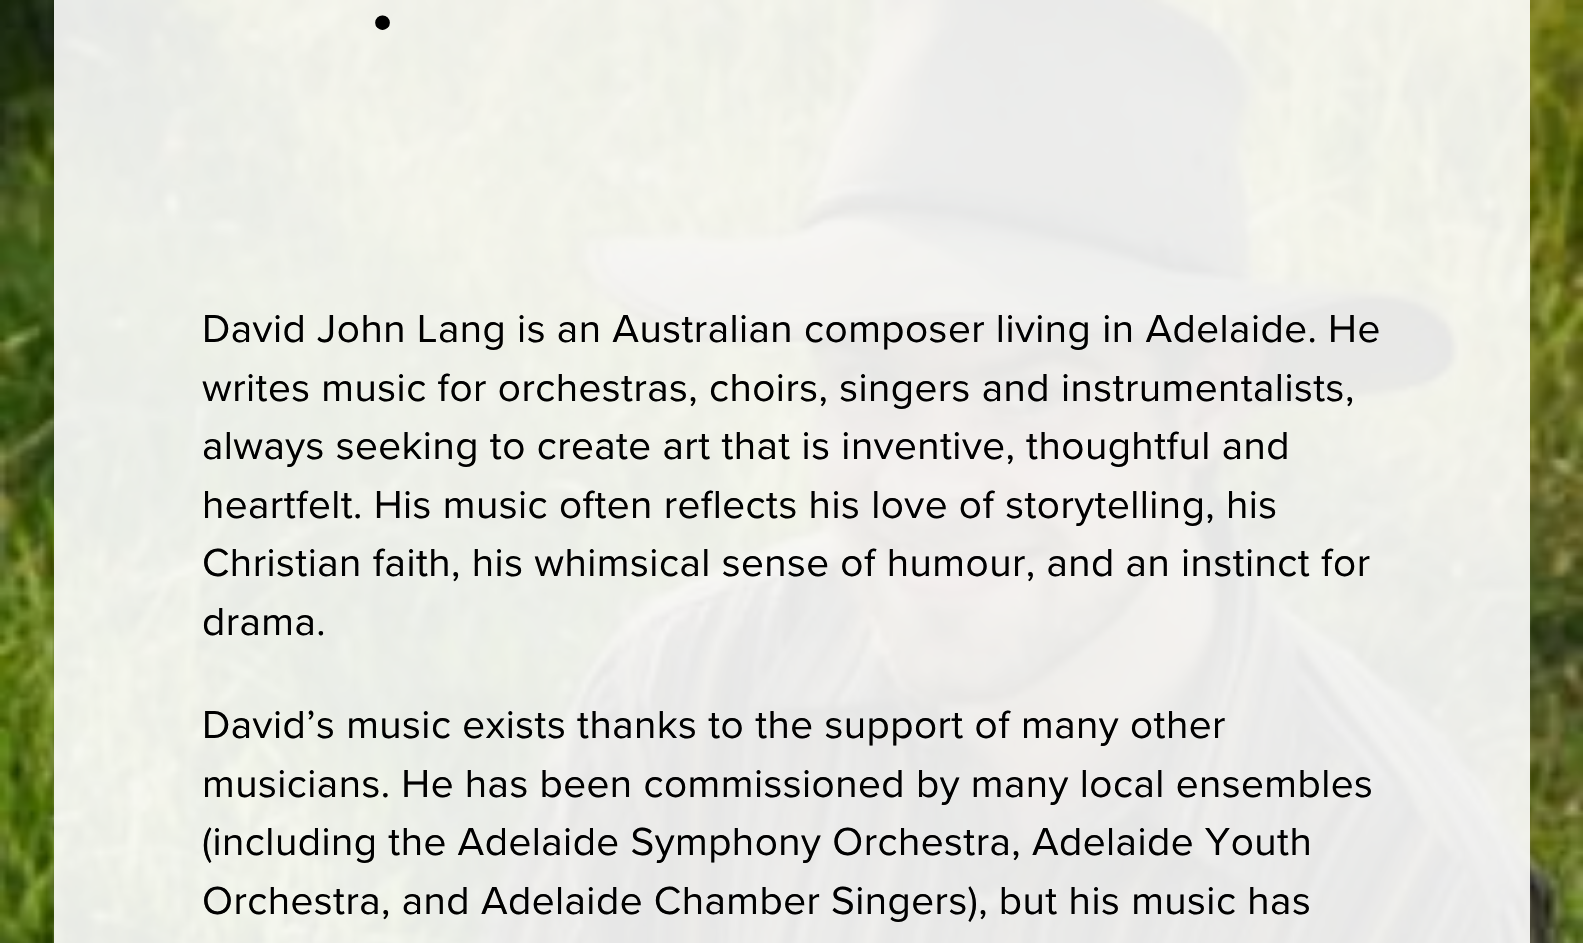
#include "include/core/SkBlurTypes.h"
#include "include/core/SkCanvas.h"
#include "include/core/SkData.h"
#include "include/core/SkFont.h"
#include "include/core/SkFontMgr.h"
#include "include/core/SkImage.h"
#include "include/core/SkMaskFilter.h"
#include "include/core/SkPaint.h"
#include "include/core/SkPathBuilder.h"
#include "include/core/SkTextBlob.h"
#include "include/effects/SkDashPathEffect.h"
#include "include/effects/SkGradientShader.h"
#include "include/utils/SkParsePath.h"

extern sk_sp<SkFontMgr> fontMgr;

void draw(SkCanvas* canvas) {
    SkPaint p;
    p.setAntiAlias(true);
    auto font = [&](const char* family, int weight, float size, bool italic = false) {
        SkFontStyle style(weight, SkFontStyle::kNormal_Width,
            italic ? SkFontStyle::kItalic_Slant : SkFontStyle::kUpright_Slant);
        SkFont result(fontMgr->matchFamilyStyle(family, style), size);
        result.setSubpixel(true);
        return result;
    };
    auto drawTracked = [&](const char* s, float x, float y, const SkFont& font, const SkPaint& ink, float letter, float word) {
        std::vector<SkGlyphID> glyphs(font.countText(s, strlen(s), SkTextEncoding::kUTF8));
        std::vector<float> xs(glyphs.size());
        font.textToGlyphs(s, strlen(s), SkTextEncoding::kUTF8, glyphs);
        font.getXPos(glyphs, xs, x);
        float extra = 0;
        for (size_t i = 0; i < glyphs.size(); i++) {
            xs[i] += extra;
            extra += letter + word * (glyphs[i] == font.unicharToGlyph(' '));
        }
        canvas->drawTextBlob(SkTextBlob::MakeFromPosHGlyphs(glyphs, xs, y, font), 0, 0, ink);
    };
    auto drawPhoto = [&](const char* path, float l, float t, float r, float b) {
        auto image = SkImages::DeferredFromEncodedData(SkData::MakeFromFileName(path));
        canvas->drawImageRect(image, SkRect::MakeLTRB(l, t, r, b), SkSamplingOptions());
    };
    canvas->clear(0xFFFFFFFF);
    drawPhoto("media/1.png", 0, 0, 1583, 943);
    auto font1 = font("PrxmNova", 700, 90);
    p.setColor(0xFF000000);
    drawTracked(".", 371, 29, font1, p, 0.45f, 0);
    auto font2 = font("PrxmNova", 400, 40.5f);
    {
        const struct { const char* s; float x, y; } items[] = {
            {"David John Lang is an Australian composer living in Adelaide. He", 202, 342},
            {"writes music for orchestras, choirs, singers and instrumentalists,", 202, 401},
            {"always seeking to create art that is inventive, thoughtful and", 202, 459},
            {"heartfelt. His music often reflects his love of storytelling, his", 202, 518},
            {"Christian faith, his whimsical sense of humour, and an instinct for", 202, 576},
            {"drama.", 202, 635},
            {"David’s music exists thanks to the support of many other", 202, 738},
            {"musicians. He has been commissioned by many local ensembles", 202, 797},
            {"(including the Adelaide Symphony Orchestra, Adelaide Youth", 202, 855},
            {"Orchestra, and Adelaide Chamber Singers), but his music has", 202, 914},
        };
        for (auto [s, x, y] : items) {
            drawTracked(s, x, y, font2, p, 0.45f, 0);
        }
    }
}
